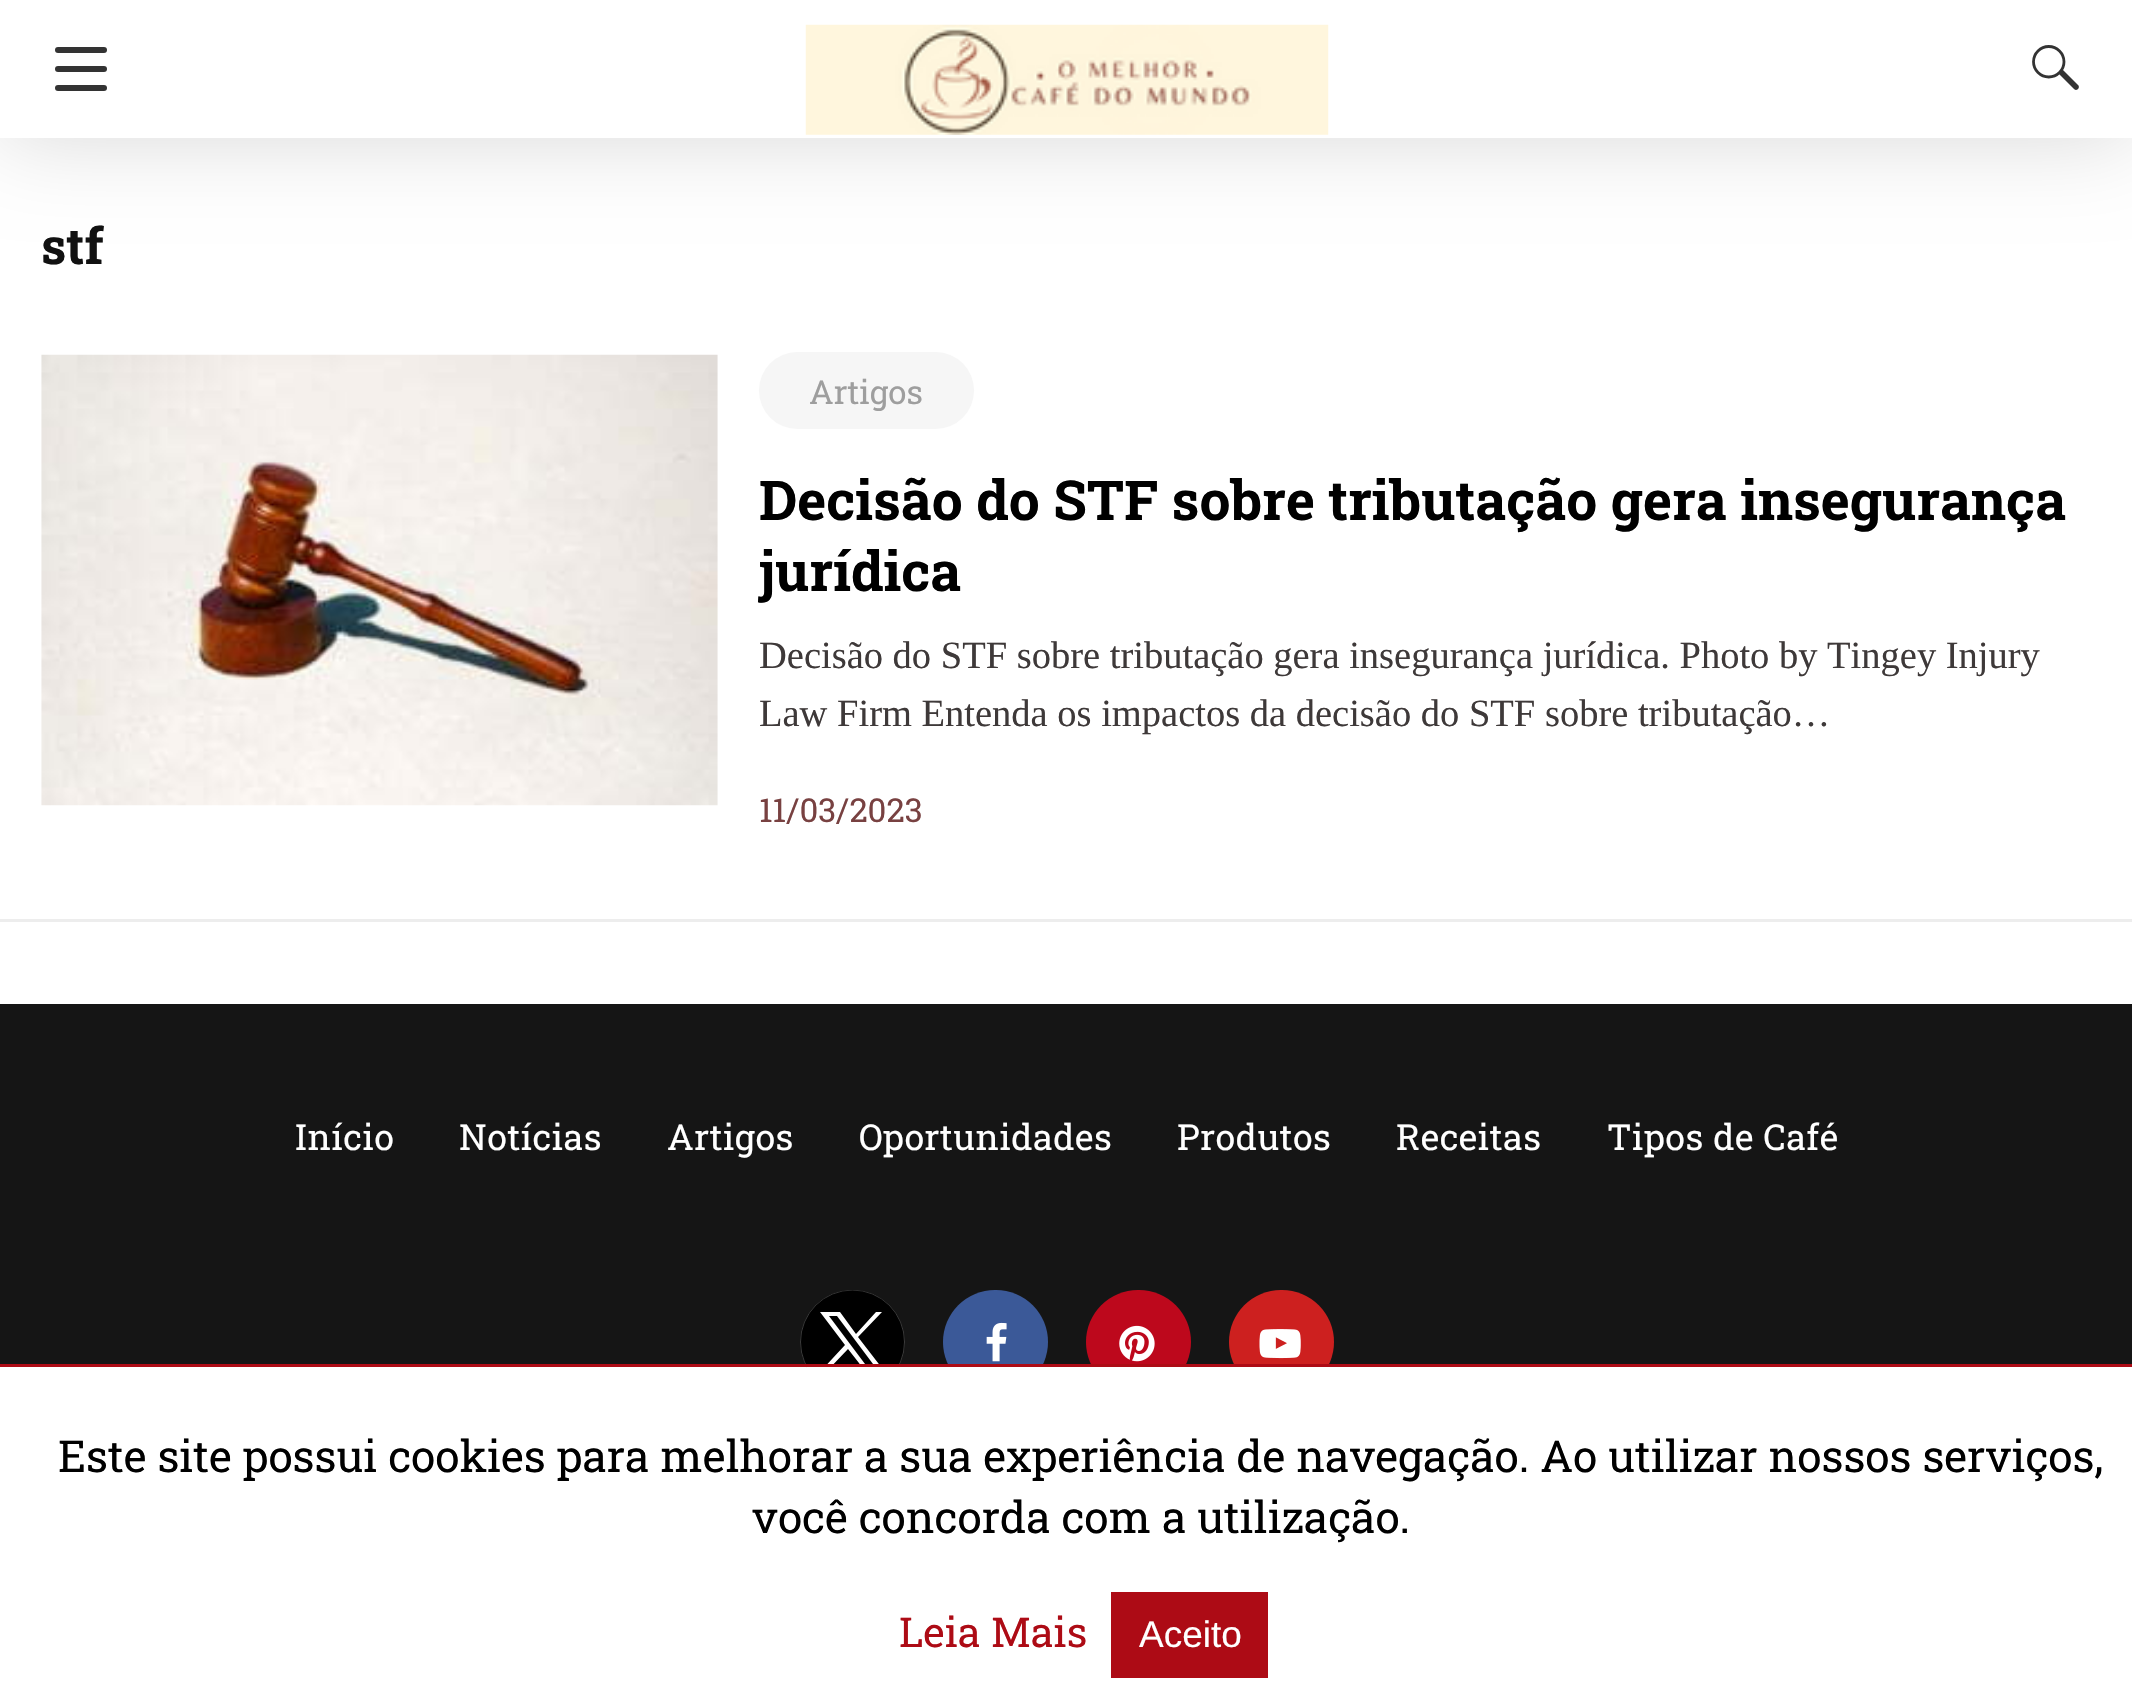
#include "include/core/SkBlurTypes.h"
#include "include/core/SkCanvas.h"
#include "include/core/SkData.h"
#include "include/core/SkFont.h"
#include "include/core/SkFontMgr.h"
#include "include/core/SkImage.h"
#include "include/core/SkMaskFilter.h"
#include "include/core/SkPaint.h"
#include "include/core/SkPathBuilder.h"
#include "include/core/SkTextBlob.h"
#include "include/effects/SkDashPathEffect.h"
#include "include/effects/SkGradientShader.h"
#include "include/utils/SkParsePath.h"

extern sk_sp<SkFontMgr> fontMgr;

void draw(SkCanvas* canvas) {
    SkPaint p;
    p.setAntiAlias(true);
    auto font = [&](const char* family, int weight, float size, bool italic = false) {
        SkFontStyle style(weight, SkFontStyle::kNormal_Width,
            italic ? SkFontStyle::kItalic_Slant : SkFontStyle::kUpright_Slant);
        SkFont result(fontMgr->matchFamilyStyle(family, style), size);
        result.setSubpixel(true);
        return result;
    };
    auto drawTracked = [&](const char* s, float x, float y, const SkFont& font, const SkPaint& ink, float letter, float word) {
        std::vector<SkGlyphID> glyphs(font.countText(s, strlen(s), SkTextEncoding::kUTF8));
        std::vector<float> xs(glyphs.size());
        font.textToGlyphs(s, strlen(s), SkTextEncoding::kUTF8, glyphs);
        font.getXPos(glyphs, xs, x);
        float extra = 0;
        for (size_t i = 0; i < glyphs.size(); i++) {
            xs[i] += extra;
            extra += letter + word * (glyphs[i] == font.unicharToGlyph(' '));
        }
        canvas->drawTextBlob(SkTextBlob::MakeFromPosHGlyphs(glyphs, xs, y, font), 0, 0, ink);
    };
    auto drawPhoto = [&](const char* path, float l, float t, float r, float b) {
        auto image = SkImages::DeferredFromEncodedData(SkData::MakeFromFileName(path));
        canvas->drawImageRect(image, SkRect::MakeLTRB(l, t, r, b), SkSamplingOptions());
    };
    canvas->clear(0xFFFFFFFF);
    p.setColor(0x26000000);
    p.setMaskFilter(SkMaskFilter::MakeBlur(kNormal_SkBlurStyle, 44));
    canvas->drawRect(SkRect::MakeLTRB(0, 0, 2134, 138), p);
    p.setMaskFilter(nullptr);
    p.setColor(0xFFFFFFFF);
    canvas->drawRect(SkRect::MakeLTRB(0, 0, 2132, 138), p);
    p.setColor(0xFF333333);
    canvas->drawRoundRect(SkRect::MakeLTRB(55, 47, 107, 53), 3, 3, p);
    canvas->drawRoundRect(SkRect::MakeLTRB(55, 66, 107, 72), 3, 3, p);
    canvas->drawRoundRect(SkRect::MakeLTRB(55, 85, 107, 91), 3, 3, p);
    drawPhoto("media/1.png", 805, 24, 1329, 135);
    p.setStyle(SkPaint::kStroke_Style);
    p.setStrokeWidth(2.8f);
    canvas->drawPath(SkPathBuilder().moveTo(2059.5f, 51).cubicTo(2065.5f, 57, 2065.5f, 66.5f, 2059.5f, 72.5f).cubicTo(2053.5f, 78.5f, 2044, 78.5f, 2038, 72.5f).cubicTo(2032, 66.5f, 2032, 57, 2038, 51).cubicTo(2044, 45, 2053.5f, 45, 2059.5f, 51).close().detach(), p);
    p.setStyle(SkPaint::kFill_Style);
    canvas->drawPath(SkPathBuilder().moveTo(2058.5f, 73.5f).lineTo(2062.5f, 69.5f).lineTo(2078.5f, 85.5f).cubicTo(2080, 88.5f, 2076.5f, 91.5f, 2074, 89).close().detach(), p);
    auto font1 = font("Roboto Slab", 700, 50);
    p.setColor(0xFF111111);
    canvas->drawString("stf", 41, 264, font1, p);
    p.setColor(0xFFEDEDED);
    canvas->drawRect(SkRect::MakeLTRB(0, 919, 2132, 922), p);
    drawPhoto("media/2.png", 41, 354, 718, 806);
    p.setColor(0xFFF6F6F6);
    canvas->drawRoundRect(SkRect::MakeLTRB(759, 352, 974, 429), 38.5f, 38.5f, p);
    auto font2 = font("Roboto Slab", 400, 33);
    p.setColor(0xFF9E9E9E);
    canvas->drawString("Artigos", 809, 404, font2, p);
    auto font3 = font("Roboto Slab", 700, 55);
    p.setColor(0xFF000000);
    canvas->drawString("Decisão do STF sobre tributação gera insegurança", 759, 520, font3, p);
    canvas->drawString("jurídica", 759, 591, font3, p);
    auto font4 = font("Liberation Serif", 400, 38.5f);
    p.setColor(0xFF3E3939);
    canvas->drawString("Decisão do STF sobre tributação gera insegurança jurídica. Photo by Tingey Injury", 759, 668, font4, p);
    canvas->drawString("Law Firm Entenda os impactos da decisão do STF sobre tributação…", 759, 726, font4, p);
    p.setColor(0xFF784141);
    canvas->drawString("11/03/2023", 759, 822, font2, p);
    p.setColor(0xFF151515);
    canvas->drawRect(SkRect::MakeLTRB(0, 1004, 2132, 1364), p);
    auto font5 = font("Roboto Slab", 400, 35.75f);
    p.setColor(0xFFFFFFFF);
    {
        const struct { const char* s; float x, y; } items[] = {
            {"Início", 295, 1150},
            {"Notícias", 459, 1150},
            {"Artigos", 667, 1150},
            {"Oportunidades", 859, 1150},
            {"Produtos", 1177, 1150},
            {"Receitas", 1396, 1150},
            {"Tipos de Café", 1607, 1150},
        };
        for (auto [s, x, y] : items) {
            drawTracked(s, x, y, font5, p, 0.5f, 0);
        }
    }
    p.setColor(0xFF000000);
    canvas->drawCircle(852.5f, 1342, 52, p);
    canvas->save();
    canvas->clipPath(SkPathBuilder().moveTo(852, 1290).lineTo(853, 1290).cubicTo(881.5f, 1290, 905, 1313.5f, 905, 1342).cubicTo(905, 1370.5f, 881.5f, 1394, 853, 1394).lineTo(852, 1394).cubicTo(823.5f, 1394, 800, 1370.5f, 800, 1342).cubicTo(800, 1313.5f, 823.5f, 1290, 852, 1290).close().detach(), true);
    p.setStyle(SkPaint::kStroke_Style);
    p.setStrokeWidth(0.2f);
    p.setColor(0xFFFFFFFF);
    canvas->drawCircle(852.5f, 1342, 52, p);
    canvas->restore();
    p.setStyle(SkPaint::kFill_Style);
    canvas->drawPath(SkPathBuilder().moveTo(820, 1312).lineTo(845, 1345).lineTo(820, 1372).lineTo(826, 1372).lineTo(848, 1349).lineTo(866, 1372).lineTo(885, 1372).lineTo(858, 1337).lineTo(882, 1312).lineTo(876, 1312).lineTo(856, 1334).lineTo(840, 1312).close().moveTo(829, 1316).lineTo(837, 1316).lineTo(876, 1368).lineTo(868, 1368).close().detach(), p);
    p.setColor(0xFF3B5998);
    canvas->drawRoundRect(SkRect::MakeLTRB(943, 1290, 1048, 1394), 52, 52, p);
    drawPhoto("media/3.png", 986, 1322, 1007, 1362);
    p.setColor(0xFFBD081C);
    canvas->drawRoundRect(SkRect::MakeLTRB(1086, 1290, 1191, 1394), 52, 52, p);
    drawPhoto("media/4.png", 1119, 1325, 1155, 1362);
    p.setColor(0xFFCD201F);
    canvas->drawRoundRect(SkRect::MakeLTRB(1229, 1290, 1334, 1394), 52, 52, p);
    drawPhoto("media/5.png", 1259, 1329, 1301, 1359);
    p.setColor(0xFFFFFFFF);
    canvas->drawRect(SkRect::MakeLTRB(807, 1367, 1328, 1394), p);
    p.setColor(0xFFAD0B15);
    canvas->drawRect(SkRect::MakeLTRB(0, 1364, 2132, 1367), p);
    auto font6 = font("Roboto Slab", 400, 44);
    p.setColor(0xFF000000);
    canvas->drawString("Este site possui cookies para melhorar a sua experiência de navegação. Ao utilizar nossos serviços,", 58, 1472, font6, p);
    canvas->drawString("você concorda com a utilização.", 752, 1533, font6, p);
    auto font7 = font("Roboto Slab", 400, 41.25f);
    p.setColor(0xFFAD0B15);
    canvas->drawString("Leia Mais", 899, 1647, font7, p);
    canvas->drawRect(SkRect::MakeLTRB(1111, 1592, 1268, 1678), p);
    auto font8 = font("Liberation Sans", 400, 37);
    p.setColor(0xFFFFFFFF);
    canvas->drawString("Aceito", 1139, 1647, font8, p);
}
